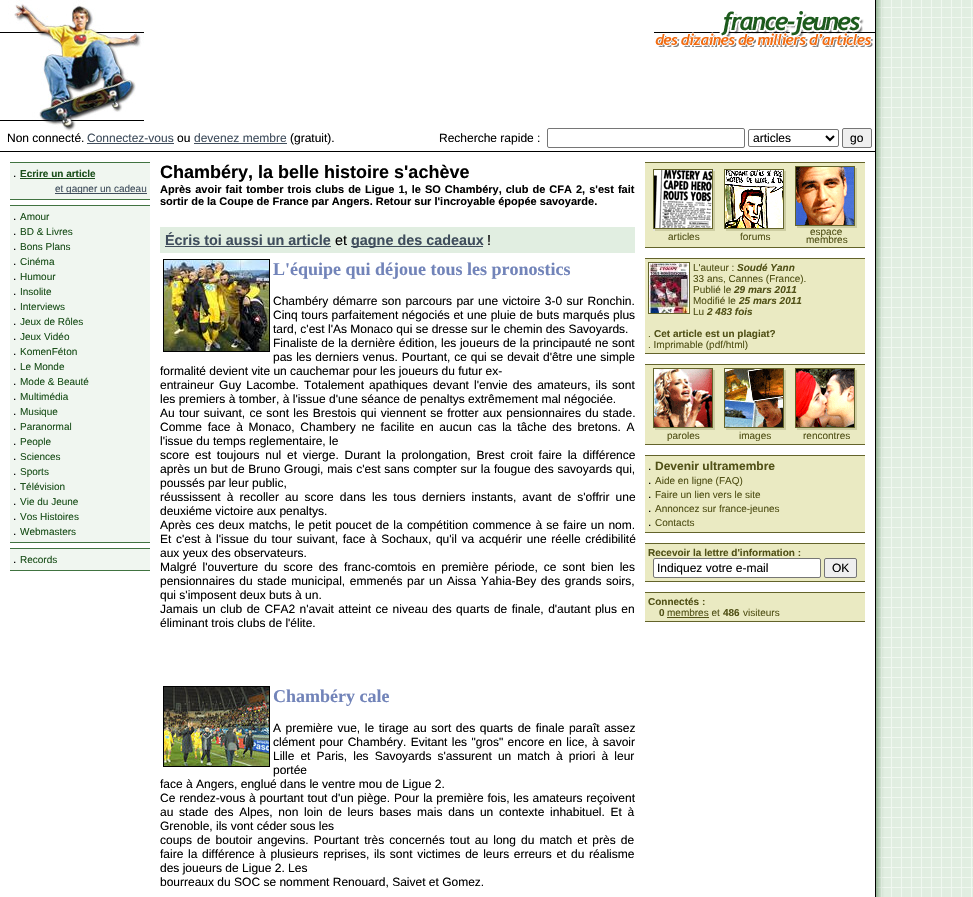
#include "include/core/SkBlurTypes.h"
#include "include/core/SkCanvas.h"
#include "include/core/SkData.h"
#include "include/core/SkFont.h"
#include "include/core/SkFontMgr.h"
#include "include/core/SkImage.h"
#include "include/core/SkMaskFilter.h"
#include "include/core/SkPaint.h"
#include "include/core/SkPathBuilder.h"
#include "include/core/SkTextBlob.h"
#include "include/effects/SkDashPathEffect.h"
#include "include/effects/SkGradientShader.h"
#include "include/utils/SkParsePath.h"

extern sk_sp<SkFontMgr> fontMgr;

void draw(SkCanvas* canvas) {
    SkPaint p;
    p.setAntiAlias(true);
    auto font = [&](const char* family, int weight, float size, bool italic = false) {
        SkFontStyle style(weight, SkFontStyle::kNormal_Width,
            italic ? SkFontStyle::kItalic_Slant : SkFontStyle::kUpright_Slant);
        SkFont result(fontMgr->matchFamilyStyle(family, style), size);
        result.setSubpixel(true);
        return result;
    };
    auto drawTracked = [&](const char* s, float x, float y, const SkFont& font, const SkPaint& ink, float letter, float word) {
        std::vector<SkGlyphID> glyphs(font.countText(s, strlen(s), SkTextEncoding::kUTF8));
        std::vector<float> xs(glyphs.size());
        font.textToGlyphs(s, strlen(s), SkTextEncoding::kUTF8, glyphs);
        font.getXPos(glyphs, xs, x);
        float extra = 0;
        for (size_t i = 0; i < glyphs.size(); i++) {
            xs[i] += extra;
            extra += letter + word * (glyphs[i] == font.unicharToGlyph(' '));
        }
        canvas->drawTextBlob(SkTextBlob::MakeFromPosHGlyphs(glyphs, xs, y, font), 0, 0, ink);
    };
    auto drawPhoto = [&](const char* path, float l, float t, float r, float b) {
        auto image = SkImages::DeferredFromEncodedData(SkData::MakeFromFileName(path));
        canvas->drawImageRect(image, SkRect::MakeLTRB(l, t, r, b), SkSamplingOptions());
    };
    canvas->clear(0xFFFFFFFF);
    drawPhoto("media/1.png", 0, 0, 144, 131);
    drawPhoto("media/2.png", 654, 11, 875, 47);
    auto font1 = font("Liberation Sans", 400, 12);
    p.setColor(0xFF000000);
    canvas->drawString("Non connecté.", 7, 142, font1, p);
    p.setColor(0xFF3F4D5C);
    canvas->drawString("Connectez-vous", 87, 142, font1, p);
    canvas->drawRect(SkRect::MakeLTRB(87, 143, 174, 144), p);
    p.setColor(0xFF000000);
    canvas->drawString("ou", 177, 142, font1, p);
    p.setColor(0xFF3F4D5C);
    canvas->drawString("devenez membre", 194, 142, font1, p);
    canvas->drawRect(SkRect::MakeLTRB(194, 143, 287, 144), p);
    p.setColor(0xFF000000);
    canvas->drawString("(gratuit).", 290, 142, font1, p);
    canvas->drawString("Recherche rapide :", 439, 142, font1, p);
    p.setStyle(SkPaint::kStroke_Style);
    p.setStrokeWidth(1);
    p.setColor(0xFF767676);
    canvas->drawRoundRect(SkRect::MakeLTRB(547.5f, 128.5f, 744.5f, 147.5f), 1.5f, 1.5f, p);
    canvas->drawRoundRect(SkRect::MakeLTRB(748.5f, 129.5f, 838.5f, 146.5f), 1.5f, 1.5f, p);
    p.setStrokeWidth(2);
    p.setColor(0xFF000000);
    canvas->drawPath(SkPathBuilder().moveTo(826, 136).lineTo(830, 140).lineTo(834, 136).detach(), p);
    p.setStyle(SkPaint::kFill_Style);
    canvas->drawString("articles", 753, 142, font1, p);
    p.setColor(0xFFEFEFEF);
    canvas->drawRoundRect(SkRect::MakeLTRB(842.5f, 128.5f, 871.5f, 147.5f), 1.5f, 1.5f, p);
    p.setStyle(SkPaint::kStroke_Style);
    p.setStrokeWidth(1);
    p.setColor(0xFF767676);
    canvas->drawRoundRect(SkRect::MakeLTRB(842.5f, 128.5f, 871.5f, 147.5f), 1.5f, 1.5f, p);
    p.setStyle(SkPaint::kFill_Style);
    p.setColor(0xFF000000);
    canvas->drawString("go", 850, 142, font1, p);
    {
        const struct { float l, t, r, b; SkColor color; } items[] = {
            {0, 151, 875, 152, 0xFF000000},
            {10, 162, 150, 163, 0xFF407340},
            {10, 163, 150, 199, 0xFFF0F6F0},
        };
        for (auto [l, t, r, b, color] : items) {
            p.setColor(color);
            canvas->drawRect(SkRect::MakeLTRB(l, t, r, b), p);
        }
    }
    p.setColor(0xFF000000);
    canvas->drawString(".", 13, 177, font1, p);
    auto font2 = font("Liberation Sans", 700, 10);
    p.setColor(0xFF1B501B);
    canvas->drawString("Ecrire un article", 20, 177, font2, p);
    canvas->drawRect(SkRect::MakeLTRB(20, 178, 95, 179), p);
    p.setColor(0xFF3F4D5C);
    canvas->drawRect(SkRect::MakeLTRB(55, 193, 147, 194), p);
    auto font3 = font("Liberation Sans", 400, 10);
    canvas->drawString("et gagner un cadeau", 55, 192, font3, p);
    {
        const struct { float l, t, r, b; SkColor color; } items[] = {
            {10, 199, 150, 200, 0xFF407340},
            {10, 205, 150, 206, 0xFF407340},
            {10, 206, 150, 542, 0xFFF0F6F0},
        };
        for (auto [l, t, r, b, color] : items) {
            p.setColor(color);
            canvas->drawRect(SkRect::MakeLTRB(l, t, r, b), p);
        }
    }
    p.setColor(0xFF000000);
    canvas->drawString(".", 13, 220, font1, p);
    p.setColor(0xFF1B501B);
    canvas->drawString("Amour", 20, 220, font3, p);
    p.setColor(0xFF000000);
    canvas->drawString(".", 13, 235, font1, p);
    p.setColor(0xFF1B501B);
    canvas->drawString("BD & Livres", 20, 235, font3, p);
    p.setColor(0xFF000000);
    canvas->drawString(".", 13, 250, font1, p);
    p.setColor(0xFF1B501B);
    canvas->drawString("Bons Plans", 20, 250, font3, p);
    p.setColor(0xFF000000);
    canvas->drawString(".", 13, 265, font1, p);
    p.setColor(0xFF1B501B);
    canvas->drawString("Cinéma", 20, 265, font3, p);
    p.setColor(0xFF000000);
    canvas->drawString(".", 13, 280, font1, p);
    p.setColor(0xFF1B501B);
    canvas->drawString("Humour", 20, 280, font3, p);
    p.setColor(0xFF000000);
    canvas->drawString(".", 13, 295, font1, p);
    p.setColor(0xFF1B501B);
    canvas->drawString("Insolite", 20, 295, font3, p);
    p.setColor(0xFF000000);
    canvas->drawString(".", 13, 310, font1, p);
    p.setColor(0xFF1B501B);
    canvas->drawString("Interviews", 20, 310, font3, p);
    p.setColor(0xFF000000);
    canvas->drawString(".", 13, 325, font1, p);
    p.setColor(0xFF1B501B);
    canvas->drawString("Jeux de Rôles", 20, 325, font3, p);
    p.setColor(0xFF000000);
    canvas->drawString(".", 13, 340, font1, p);
    p.setColor(0xFF1B501B);
    canvas->drawString("Jeux Vidéo", 20, 340, font3, p);
    p.setColor(0xFF000000);
    canvas->drawString(".", 13, 355, font1, p);
    p.setColor(0xFF1B501B);
    canvas->drawString("KomenFéton", 20, 355, font3, p);
    p.setColor(0xFF000000);
    canvas->drawString(".", 13, 370, font1, p);
    p.setColor(0xFF1B501B);
    canvas->drawString("Le Monde", 20, 370, font3, p);
    p.setColor(0xFF000000);
    canvas->drawString(".", 13, 385, font1, p);
    p.setColor(0xFF1B501B);
    canvas->drawString("Mode & Beauté", 20, 385, font3, p);
    p.setColor(0xFF000000);
    canvas->drawString(".", 13, 400, font1, p);
    p.setColor(0xFF1B501B);
    canvas->drawString("Multimédia", 20, 400, font3, p);
    p.setColor(0xFF000000);
    canvas->drawString(".", 13, 415, font1, p);
    p.setColor(0xFF1B501B);
    canvas->drawString("Musique", 20, 415, font3, p);
    p.setColor(0xFF000000);
    canvas->drawString(".", 13, 430, font1, p);
    p.setColor(0xFF1B501B);
    canvas->drawString("Paranormal", 20, 430, font3, p);
    p.setColor(0xFF000000);
    canvas->drawString(".", 13, 445, font1, p);
    p.setColor(0xFF1B501B);
    canvas->drawString("People", 20, 445, font3, p);
    p.setColor(0xFF000000);
    canvas->drawString(".", 13, 460, font1, p);
    p.setColor(0xFF1B501B);
    canvas->drawString("Sciences", 20, 460, font3, p);
    p.setColor(0xFF000000);
    canvas->drawString(".", 13, 475, font1, p);
    p.setColor(0xFF1B501B);
    canvas->drawString("Sports", 20, 475, font3, p);
    p.setColor(0xFF000000);
    canvas->drawString(".", 13, 490, font1, p);
    p.setColor(0xFF1B501B);
    canvas->drawString("Télévision", 20, 490, font3, p);
    p.setColor(0xFF000000);
    canvas->drawString(".", 13, 505, font1, p);
    p.setColor(0xFF1B501B);
    canvas->drawString("Vie du Jeune", 20, 505, font3, p);
    p.setColor(0xFF000000);
    canvas->drawString(".", 13, 520, font1, p);
    p.setColor(0xFF1B501B);
    canvas->drawString("Vos Histoires", 20, 520, font3, p);
    p.setColor(0xFF000000);
    canvas->drawString(".", 13, 535, font1, p);
    p.setColor(0xFF1B501B);
    canvas->drawString("Webmasters", 20, 535, font3, p);
    {
        const struct { float l, t, r, b; SkColor color; } items[] = {
            {10, 542, 150, 543, 0xFF407340},
            {10, 548, 150, 549, 0xFF407340},
            {10, 549, 150, 570, 0xFFF0F6F0},
        };
        for (auto [l, t, r, b, color] : items) {
            p.setColor(color);
            canvas->drawRect(SkRect::MakeLTRB(l, t, r, b), p);
        }
    }
    p.setColor(0xFF000000);
    canvas->drawString(".", 13, 563, font1, p);
    p.setColor(0xFF1B501B);
    canvas->drawString("Records", 20, 563, font3, p);
    p.setColor(0xFF407340);
    canvas->drawRect(SkRect::MakeLTRB(10, 570, 150, 571), p);
    auto font4 = font("Liberation Sans", 700, 18);
    p.setColor(0xFF000000);
    canvas->drawString("Chambéry, la belle histoire s'achève", 160, 178, font4, p);
    auto font5 = font("Liberation Sans", 700, 11);
    drawTracked("Après avoir fait tomber trois clubs de Ligue 1, le SO Chambéry, club de CFA 2, s'est fait", 160, 193, font5, p, 0, 1);
    canvas->drawString("sortir de la Coupe de France par Angers. Retour sur l'incroyable épopée savoyarde.", 160, 205, font5, p);
    p.setColor(0xFFE1EEE1);
    canvas->drawRect(SkRect::MakeLTRB(160, 227, 635, 253), p);
    auto font6 = font("Liberation Sans", 700, 14.4f);
    p.setColor(0xFF3F4D5C);
    canvas->drawString("Écris toi aussi un article", 165, 245, font6, p);
    canvas->drawRect(SkRect::MakeLTRB(165, 246, 331, 247), p);
    auto font7 = font("Liberation Sans", 400, 14.4f);
    p.setColor(0xFF000000);
    canvas->drawString("et", 335, 245, font7, p);
    p.setColor(0xFF3F4D5C);
    canvas->drawRect(SkRect::MakeLTRB(351, 246, 483, 247), p);
    canvas->drawString("gagne des cadeaux", 351, 245, font6, p);
    p.setColor(0xFF000000);
    canvas->drawString("!", 487, 245, font7, p);
    p.setStyle(SkPaint::kStroke_Style);
    canvas->drawRect(SkRect::MakeLTRB(163.5f, 259.5f, 269.5f, 351.5f), p);
    drawPhoto("media/3.png", 164, 260, 269, 351);
    auto font8 = font("Liberation Serif", 700, 18);
    p.setStyle(SkPaint::kFill_Style);
    p.setColor(0xFF7284B9);
    canvas->drawString("L'équipe qui déjoue tous les pronostics", 273, 275, font8, p);
    p.setColor(0xFF000000);
    drawTracked("Chambéry démarre son parcours par une victoire 3-0 sur Ronchin.", 273, 305, font1, p, 0, 1);
    drawTracked("Cinq tours parfaitement négociés et une pluie de buts marqués plus", 273, 319, font1, p, 0, 0.25f);
    canvas->drawString("tard, c'est l'As Monaco qui se dresse sur le chemin des Savoyards.", 273, 333, font1, p);
    drawTracked("Finaliste de la dernière édition, les joueurs de la principauté ne sont", 273, 347, font1, p, 0, 0.25f);
    drawTracked("pas les derniers venus. Pourtant, ce qui se devait d'être une simple", 273, 361, font1, p, 0, 0.5f);
    canvas->drawString("formalité devient vite un cauchemar pour les joueurs du futur ex-", 160, 375, font1, p);
    drawTracked("entraineur Guy Lacombe. Totalement apathiques devant l'envie des amateurs, ils sont", 160, 389, font1, p, 0, 1.75f);
    canvas->drawString("les premiers à tomber, à l'issue d'une séance de penaltys extrêmement mal négociée.", 160, 403, font1, p);
    drawTracked("Au tour suivant, ce sont les Brestois qui viennent se frotter aux pensionnaires du stade.", 160, 417, font1, p, 0, 0.9f);
    drawTracked("Comme face à Monaco, Chambery ne facilite en aucun cas la tâche des bretons. A", 160, 431, font1, p, 0, 2.4f);
    canvas->drawString("l'issue du temps reglementaire, le", 160, 445, font1, p);
    drawTracked("score est toujours nul et vierge. Durant la prolongation, Brest croit faire la différence", 160, 459, font1, p, 0, 2.4f);
    drawTracked("après un but de Bruno Grougi, mais c'est sans compter sur la fougue des savoyards qui,", 160, 473, font1, p, 0, 0.4f);
    canvas->drawString("poussés par leur public,", 160, 487, font1, p);
    drawTracked("réussissent à recoller au score dans les tous derniers instants, avant de s'offrir une", 160, 501, font1, p, 0, 2.75f);
    canvas->drawString("deuxiéme victoire aux penaltys.", 160, 515, font1, p);
    drawTracked("Après ces deux matchs, le petit poucet de la compétition commence à se faire un nom.", 160, 529, font1, p, 0, 0.9f);
    drawTracked("Et c'est à l'issue du tour suivant, face à Sochaux, qu'il va acquérir une réelle crédibilité", 160, 543, font1, p, 0, 1.25f);
    canvas->drawString("aux yeux des observateurs.", 160, 557, font1, p);
    drawTracked("Malgré l'ouverture du score des franc-comtois en première période, ce sont bien les", 160, 571, font1, p, 0, 2.6f);
    drawTracked("pensionnaires du stade municipal, emmenés par un Aissa Yahia-Bey des grands soirs,", 160, 585, font1, p, 0, 1.25f);
    canvas->drawString("qui s'imposent deux buts à un.", 160, 599, font1, p);
    drawTracked("Jamais un club de CFA2 n'avait atteint ce niveau des quarts de finale, d'autant plus en", 160, 613, font1, p, 0, 1.1f);
    canvas->drawString("éliminant trois clubs de l'élite.", 160, 627, font1, p);
    p.setStyle(SkPaint::kStroke_Style);
    canvas->drawRect(SkRect::MakeLTRB(163.5f, 686.5f, 269.5f, 766.5f), p);
    drawPhoto("media/4.png", 164, 687, 269, 766);
    p.setStyle(SkPaint::kFill_Style);
    p.setColor(0xFF7284B9);
    canvas->drawString("Chambéry cale", 273, 702, font8, p);
    p.setColor(0xFF000000);
    drawTracked("A première vue, le tirage au sort des quarts de finale paraît assez", 273, 732, font1, p, 0, 1.25f);
    drawTracked("clément pour Chambéry. Evitant les \"gros\" encore en lice, à savoir", 273, 746, font1, p, 0, 1);
    drawTracked("Lille et Paris, les Savoyards s'assurent un match à priori à leur", 273, 760, font1, p, 0, 2.75f);
    canvas->drawString("portée", 273, 774, font1, p);
    canvas->drawString("face à Angers, englué dans le ventre mou de Ligue 2.", 160, 788, font1, p);
    drawTracked("Ce rendez-vous à pourtant tout d'un piège. Pour la première fois, les amateurs reçoivent", 160, 802, font1, p, 0, 0.5f);
    drawTracked("au stade des Alpes, non loin de leurs bases mais dans un contexte inhabituel. Et à", 160, 816, font1, p, 0, 2.4f);
    canvas->drawString("Grenoble, ils vont céder sous les", 160, 830, font1, p);
    drawTracked("coups de boutoir angevins. Pourtant très concernés tout au long du match et près de", 160, 844, font1, p, 0, 1.75f);
    drawTracked("faire la différence à plusieurs reprises, ils sont victimes de leurs erreurs et du réalisme", 160, 858, font1, p, 0, 1.3f);
    canvas->drawString("des joueurs de Ligue 2. Les", 160, 872, font1, p);
    canvas->drawString("bourreaux du SOC se nomment Renouard, Saivet et Gomez.", 160, 886, font1, p);
    p.setColor(0xFF63632A);
    canvas->drawRect(SkRect::MakeLTRB(645, 162, 865, 163), p);
    p.setColor(0xFFEAEAC2);
    canvas->drawRect(SkRect::MakeLTRB(645, 163, 865, 247), p);
    drawPhoto("media/5.png", 653, 169, 715, 231);
    p.setColor(0xFF515117);
    canvas->drawString("articles", 668, 240, font3, p);
    drawPhoto("media/6.png", 724, 169, 786, 231);
    canvas->drawString("forums", 740, 240, font3, p);
    drawPhoto("media/7.png", 795, 166, 857, 228);
    canvas->drawString("espace", 810, 235, font3, p);
    canvas->drawString("membres", 806, 243, font3, p);
    {
        const struct { float l, t, r, b; SkColor color; } items[] = {
            {645, 247, 865, 248, 0xFF63632A},
            {645, 258, 865, 259, 0xFF63632A},
            {645, 259, 865, 353, 0xFFEAEAC2},
        };
        for (auto [l, t, r, b, color] : items) {
            p.setColor(color);
            canvas->drawRect(SkRect::MakeLTRB(l, t, r, b), p);
        }
    }
    p.setStyle(SkPaint::kStroke_Style);
    p.setColor(0xFF63632A);
    canvas->drawRect(SkRect::MakeLTRB(648.5f, 262.5f, 689.5f, 313.5f), p);
    drawPhoto("media/8.png", 649, 263, 689, 313);
    p.setStyle(SkPaint::kFill_Style);
    p.setColor(0xFF515117);
    canvas->drawString("L'auteur :", 693, 271, font3, p);
    auto font9 = font("Liberation Sans", 700, 10, true);
    canvas->drawString("Soudé Yann", 737, 271, font9, p);
    canvas->drawString("33 ans, Cannes (France).", 693, 282, font3, p);
    canvas->drawString("Publié le", 693, 293, font3, p);
    canvas->drawString("29 mars 2011", 734, 293, font9, p);
    canvas->drawString("Modifié le", 693, 304, font3, p);
    canvas->drawString("25 mars 2011", 739, 304, font9, p);
    canvas->drawString("Lu", 693, 315, font3, p);
    canvas->drawString("2 483 fois", 707, 315, font9, p);
    canvas->drawString(".", 648, 337, font3, p);
    canvas->drawString("Cet article est un plagiat?", 654, 337, font2, p);
    canvas->drawString(". Imprimable (pdf/html)", 648, 348, font3, p);
    {
        const struct { float l, t, r, b; SkColor color; } items[] = {
            {645, 353, 865, 354, 0xFF63632A},
            {645, 364, 865, 365, 0xFF63632A},
            {645, 365, 865, 444, 0xFFEAEAC2},
        };
        for (auto [l, t, r, b, color] : items) {
            p.setColor(color);
            canvas->drawRect(SkRect::MakeLTRB(l, t, r, b), p);
        }
    }
    drawPhoto("media/9.png", 653, 368, 715, 430);
    p.setColor(0xFF515117);
    canvas->drawString("paroles", 667, 439, font3, p);
    drawPhoto("media/10.png", 724, 368, 786, 430);
    canvas->drawString("images", 739, 439, font3, p);
    drawPhoto("media/11.png", 795, 368, 857, 430);
    canvas->drawString("rencontres", 803, 439, font3, p);
    {
        const struct { float l, t, r, b; SkColor color; } items[] = {
            {645, 444, 865, 445, 0xFF63632A},
            {645, 455, 865, 456, 0xFF63632A},
            {645, 456, 865, 532, 0xFFEAEAC2},
        };
        for (auto [l, t, r, b, color] : items) {
            p.setColor(color);
            canvas->drawRect(SkRect::MakeLTRB(l, t, r, b), p);
        }
    }
    p.setColor(0xFF000000);
    canvas->drawString(".", 648, 470, font1, p);
    auto font10 = font("Liberation Sans", 700, 12);
    p.setColor(0xFF515117);
    canvas->drawString("Devenir ultramembre", 655, 470, font10, p);
    p.setColor(0xFF000000);
    canvas->drawString(".", 648, 484, font1, p);
    p.setColor(0xFF515117);
    canvas->drawString("Aide en ligne (FAQ)", 655, 484, font3, p);
    p.setColor(0xFF000000);
    canvas->drawString(".", 648, 498, font1, p);
    p.setColor(0xFF515117);
    canvas->drawString("Faire un lien vers le site", 655, 498, font3, p);
    p.setColor(0xFF000000);
    canvas->drawString(".", 648, 512, font1, p);
    p.setColor(0xFF515117);
    canvas->drawString("Annoncez sur france-jeunes", 655, 512, font3, p);
    p.setColor(0xFF000000);
    canvas->drawString(".", 648, 526, font1, p);
    p.setColor(0xFF515117);
    canvas->drawString("Contacts", 655, 526, font3, p);
    {
        const struct { float l, t, r, b; SkColor color; } items[] = {
            {645, 532, 865, 533, 0xFF63632A},
            {645, 543, 865, 544, 0xFF63632A},
            {645, 544, 865, 581, 0xFFEAEAC2},
        };
        for (auto [l, t, r, b, color] : items) {
            p.setColor(color);
            canvas->drawRect(SkRect::MakeLTRB(l, t, r, b), p);
        }
    }
    p.setColor(0xFF515117);
    canvas->drawString("Recevoir la lettre d'information :", 648, 556, font2, p);
    p.setColor(0xFFFFFFFF);
    canvas->drawRoundRect(SkRect::MakeLTRB(653.5f, 558.5f, 820.5f, 577.5f), 1.5f, 1.5f, p);
    p.setStyle(SkPaint::kStroke_Style);
    p.setColor(0xFF767676);
    canvas->drawRoundRect(SkRect::MakeLTRB(653.5f, 558.5f, 820.5f, 577.5f), 1.5f, 1.5f, p);
    p.setStyle(SkPaint::kFill_Style);
    p.setColor(0xFF000000);
    canvas->drawString("Indiquez votre e-mail", 657, 572, font1, p);
    p.setColor(0xFFEFEFEF);
    canvas->drawRoundRect(SkRect::MakeLTRB(824.5f, 558.5f, 856.5f, 577.5f), 1.5f, 1.5f, p);
    p.setStyle(SkPaint::kStroke_Style);
    p.setColor(0xFF767676);
    canvas->drawRoundRect(SkRect::MakeLTRB(824.5f, 558.5f, 856.5f, 577.5f), 1.5f, 1.5f, p);
    p.setStyle(SkPaint::kFill_Style);
    p.setColor(0xFF000000);
    canvas->drawString("OK", 832, 572, font1, p);
    {
        const struct { float l, t, r, b; SkColor color; } items[] = {
            {645, 581, 865, 582, 0xFF63632A},
            {645, 592, 865, 593, 0xFF63632A},
            {645, 593, 865, 621, 0xFFEAEAC2},
        };
        for (auto [l, t, r, b, color] : items) {
            p.setColor(color);
            canvas->drawRect(SkRect::MakeLTRB(l, t, r, b), p);
        }
    }
    p.setColor(0xFF515117);
    canvas->drawString("Connectés :", 648, 605, font2, p);
    canvas->drawString("0", 659, 616, font2, p);
    canvas->drawString("membres et", 667, 616, font3, p);
    canvas->drawRect(SkRect::MakeLTRB(667, 617, 709, 618), p);
    canvas->drawString("486", 723, 616, font2, p);
    canvas->drawString("visiteurs", 743, 616, font3, p);
    p.setColor(0xFF63632A);
    canvas->drawRect(SkRect::MakeLTRB(645, 621, 865, 622), p);
    drawPhoto("media/12.png", 875, 0, 884, 897);
    drawPhoto("media/13.png", 884, 0, 973, 897);
}
